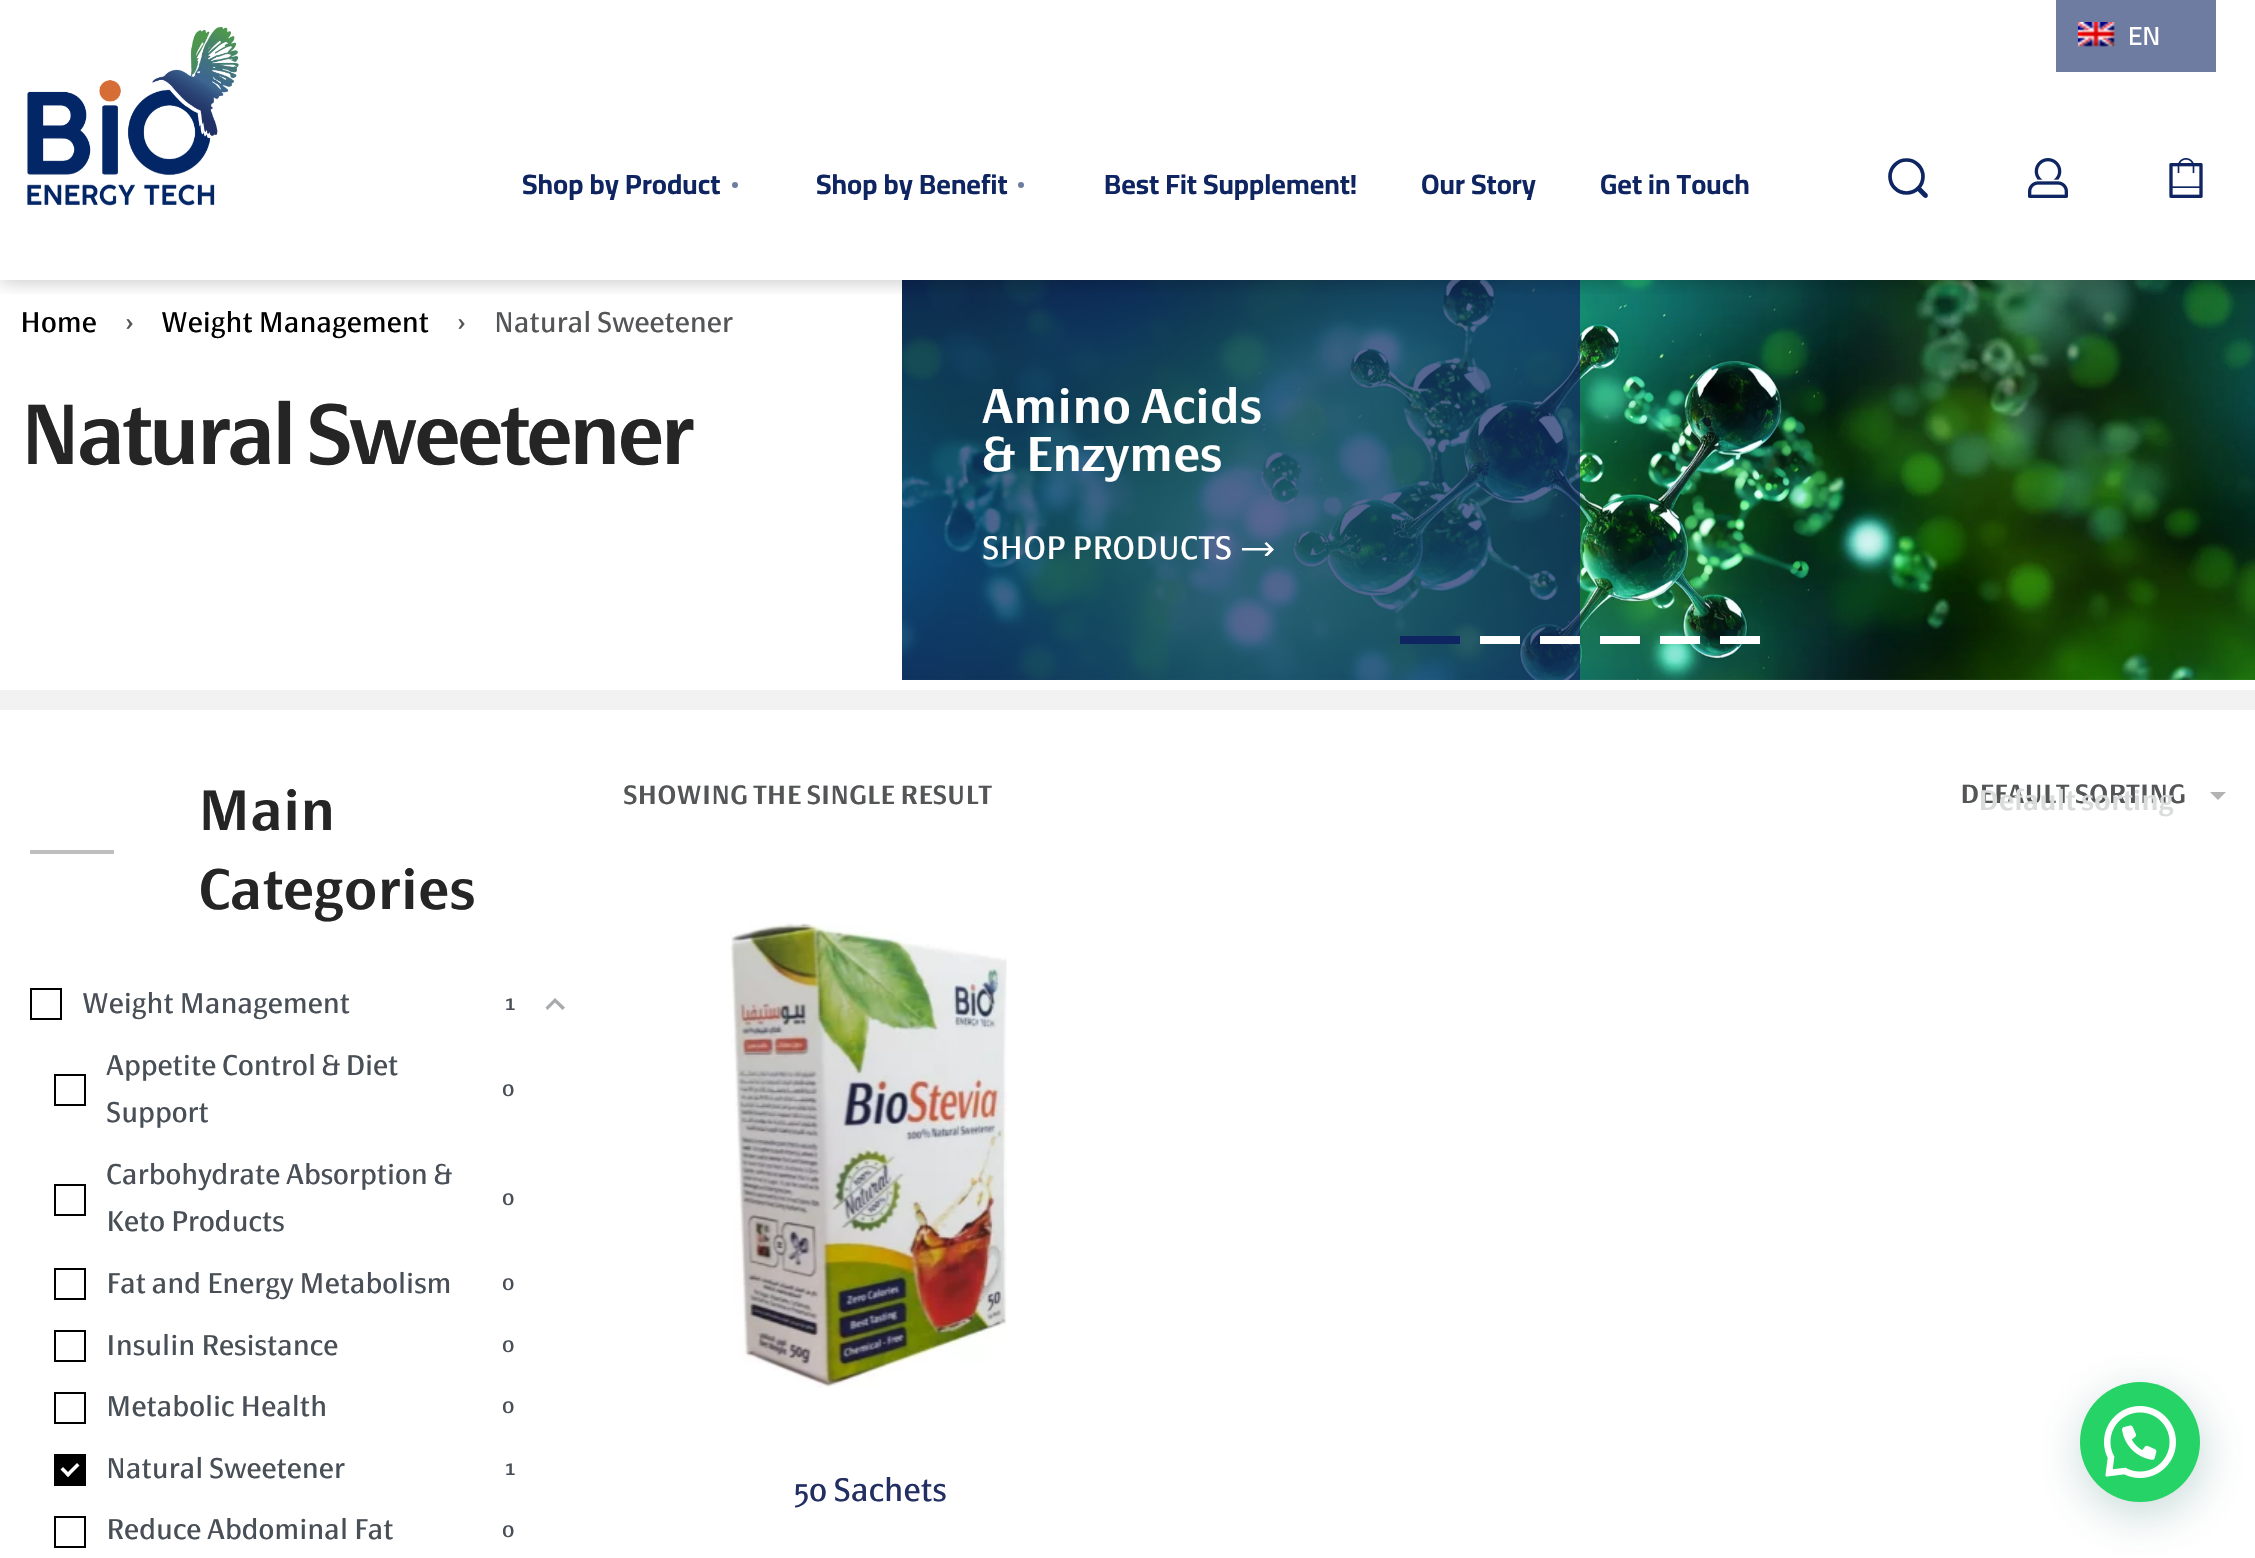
#include "include/core/SkBlurTypes.h"
#include "include/core/SkCanvas.h"
#include "include/core/SkData.h"
#include "include/core/SkFont.h"
#include "include/core/SkFontMgr.h"
#include "include/core/SkImage.h"
#include "include/core/SkMaskFilter.h"
#include "include/core/SkPaint.h"
#include "include/core/SkPathBuilder.h"
#include "include/core/SkTextBlob.h"
#include "include/effects/SkDashPathEffect.h"
#include "include/effects/SkGradientShader.h"
#include "include/utils/SkParsePath.h"

extern sk_sp<SkFontMgr> fontMgr;

void draw(SkCanvas* canvas) {
    SkPaint p;
    p.setAntiAlias(true);
    auto font = [&](const char* family, int weight, float size, bool italic = false) {
        SkFontStyle style(weight, SkFontStyle::kNormal_Width,
            italic ? SkFontStyle::kItalic_Slant : SkFontStyle::kUpright_Slant);
        SkFont result(fontMgr->matchFamilyStyle(family, style), size);
        result.setSubpixel(true);
        return result;
    };
    auto drawTracked = [&](const char* s, float x, float y, const SkFont& font, const SkPaint& ink, float letter, float word) {
        std::vector<SkGlyphID> glyphs(font.countText(s, strlen(s), SkTextEncoding::kUTF8));
        std::vector<float> xs(glyphs.size());
        font.textToGlyphs(s, strlen(s), SkTextEncoding::kUTF8, glyphs);
        font.getXPos(glyphs, xs, x);
        float extra = 0;
        for (size_t i = 0; i < glyphs.size(); i++) {
            xs[i] += extra;
            extra += letter + word * (glyphs[i] == font.unicharToGlyph(' '));
        }
        canvas->drawTextBlob(SkTextBlob::MakeFromPosHGlyphs(glyphs, xs, y, font), 0, 0, ink);
    };
    auto drawPhoto = [&](const char* path, float l, float t, float r, float b) {
        auto image = SkImages::DeferredFromEncodedData(SkData::MakeFromFileName(path));
        canvas->drawImageRect(image, SkRect::MakeLTRB(l, t, r, b), SkSamplingOptions());
    };
    canvas->clear(0xFFFFFFFF);
    drawPhoto("media/5.png", 902, 280, 2255, 680);
    p.setColor(0xB30F2562);
    canvas->drawRect(SkRect::MakeLTRB(902, 280, 1580, 680), p);
    canvas->save();
    canvas->clipRect(SkRect::MakeLTRB(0, 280, 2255, 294));
    p.setColor(0x40000000);
    p.setMaskFilter(SkMaskFilter::MakeBlur(kNormal_SkBlurStyle, 10));
    canvas->drawRect(SkRect::MakeLTRB(0, 0, 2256, 280), p);
    p.setMaskFilter(nullptr);
    canvas->restore();
    drawPhoto("media/1.png", 27, 26, 239, 206);
    p.setColor(0xFF6F7CA1);
    canvas->drawRect(SkRect::MakeLTRB(2056, 0, 2216, 72), p);
    drawPhoto("media/2.png", 2078, 22, 2115, 47);
    auto font1 = font("Cairo", 600, 26);
    p.setColor(0xFFFFFFFF);
    canvas->drawString("EN", 2128, 45, font1, p);
    p.setStyle(SkPaint::kStroke_Style);
    p.setStrokeWidth(3.7f);
    p.setColor(0xFF0F2562);
    canvas->drawCircle(1906.5f, 176.5f, 16.5f, p);
    p.setStyle(SkPaint::kFill_Style);
    canvas->drawPath(SkPathBuilder().moveTo(1921.5f, 188).lineTo(1927.5f, 194).cubicTo(1928, 195, 1928, 196, 1927.5f, 197).cubicTo(1925.5f, 199.5f, 1923, 196.5f, 1922, 195.5f).lineTo(1918, 191.5f).cubicTo(1915.5f, 189, 1919, 185.5f, 1921.5f, 188).close().detach(), p);
    drawPhoto("media/3.png", 2028, 158, 2068, 198);
    drawPhoto("media/4.png", 2169, 158, 2203, 198);
    auto font2 = font("Cairo", 700, 28);
    canvas->drawString("Shop by Product", 522, 194, font2, p);
    p.setColor(0xFF6F7CA1);
    canvas->drawCircle(735, 185, 3, p);
    p.setColor(0xFF0F2562);
    canvas->drawString("Shop by Benefit", 816, 194, font2, p);
    p.setColor(0xFF6F7CA1);
    canvas->drawCircle(1021, 185, 3, p);
    p.setColor(0xFF0F2562);
    {
        const struct { const char* s; float x, y; } items[] = {
            {"Best Fit Supplement!", 1104, 194},
            {"Our Story", 1421, 194},
            {"Get in Touch", 1600, 194},
        };
        for (auto [s, x, y] : items) {
            canvas->drawString(s, x, y, font2, p);
        }
    }
    auto font3 = font("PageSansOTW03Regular", 400, 28);
    p.setColor(0xFF000000);
    canvas->drawString("Home", 20, 332, font3, p);
    p.setColor(0xFF535557);
    canvas->drawString("›", 125, 332, font3, p);
    p.setColor(0xFF000000);
    canvas->drawString("Weight Management", 161, 332, font3, p);
    p.setColor(0xFF535557);
    canvas->drawString("›", 457, 332, font3, p);
    canvas->drawString("Natural Sweetener", 494, 332, font3, p);
    auto font4 = font("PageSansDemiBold", 600, 84);
    p.setColor(0xFF252525);
    drawTracked("Natural Sweetener", 20, 464, font4, p, -4, 0);
    auto font5 = font("PageSansDemiBold", 600, 48);
    p.setColor(0xFFFFFFFF);
    canvas->drawString("Amino Acids", 982, 423, font5, p);
    canvas->drawString("& Enzymes", 982, 471, font5, p);
    auto font6 = font("PageSansOTW03Regular", 400, 32);
    canvas->drawString("SHOP PRODUCTS", 982, 559, font6, p);
    canvas->save();
    canvas->clipRect(SkRect::MakeLTRB(1242, 542, 1274, 556));
    canvas->drawPath(SkPathBuilder().moveTo(1266.5f, 557).lineTo(1274, 549.5f).lineTo(1266.5f, 542).lineTo(1264.5f, 543.5f).lineTo(1269, 548).lineTo(1242, 548).lineTo(1242, 550.5f).lineTo(1269, 550.5f).lineTo(1264.5f, 555).close().detach(), p);
    canvas->restore();
    {
        const struct { float l, t, r, b; SkColor color; } items[] = {
            {1400, 636, 1460, 644, 0xFF0F2562},
            {1480, 636, 1520, 644, 0xFFFFFFFF},
            {1540, 636, 1580, 644, 0xFFFFFFFF},
            {1600, 636, 1640, 644, 0xFFFFFFFF},
            {1660, 636, 1700, 644, 0xFFFFFFFF},
            {1720, 636, 1760, 644, 0xFFFFFFFF},
            {0, 690, 2255, 710, 0xFFF2F2F2},
        };
        for (auto [l, t, r, b, color] : items) {
            p.setColor(color);
            canvas->drawRect(SkRect::MakeLTRB(l, t, r, b), p);
        }
    }
    auto font7 = font("PageSansDemiBold", 600, 56);
    p.setColor(0xFF252525);
    canvas->drawString("Main", 198, 830, font7, p);
    p.setColor(0xFFBEBEBE);
    canvas->drawRect(SkRect::MakeLTRB(30, 850, 114, 854), p);
    p.setColor(0xFF252525);
    canvas->drawString("Categories", 198, 909, font7, p);
    p.setStyle(SkPaint::kStroke_Style);
    p.setStrokeWidth(2);
    p.setColor(0xFF000000);
    canvas->drawRect(SkRect::MakeLTRB(31, 989, 61, 1019), p);
    p.setStyle(SkPaint::kFill_Style);
    p.setColor(0xFF484F56);
    canvas->drawString("Weight Management", 82, 1013, font3, p);
    auto font8 = font("PageSansOTW03Regular", 400, 22);
    canvas->drawString("1", 506, 1010, font8, p);
    p.setColor(0xFFA9AAAB);
    canvas->drawPath(SkPathBuilder(SkPathFillType::kEvenOdd).moveTo(565, 1007.5f).lineTo(555, 998).lineTo(545.5f, 1007.5f).lineTo(547.5f, 1010).lineTo(555, 1002.5f).lineTo(562.5f, 1010).close().detach(), p);
    p.setStyle(SkPaint::kStroke_Style);
    p.setColor(0xFF000000);
    canvas->drawRect(SkRect::MakeLTRB(55, 1075, 85, 1105), p);
    p.setStyle(SkPaint::kFill_Style);
    p.setColor(0xFF484F56);
    canvas->drawString("Appetite Control & Diet", 106, 1075, font3, p);
    canvas->drawString("Support", 106, 1122, font3, p);
    canvas->drawString("0", 502, 1096, font8, p);
    p.setStyle(SkPaint::kStroke_Style);
    p.setColor(0xFF000000);
    canvas->drawRect(SkRect::MakeLTRB(55, 1185, 85, 1215), p);
    p.setStyle(SkPaint::kFill_Style);
    p.setColor(0xFF484F56);
    canvas->drawString("Carbohydrate Absorption &", 106, 1184, font3, p);
    canvas->drawString("Keto Products", 106, 1231, font3, p);
    canvas->drawString("0", 502, 1205, font8, p);
    p.setStyle(SkPaint::kStroke_Style);
    p.setColor(0xFF000000);
    canvas->drawRect(SkRect::MakeLTRB(55, 1269, 85, 1299), p);
    p.setStyle(SkPaint::kFill_Style);
    p.setColor(0xFF484F56);
    canvas->drawString("Fat and Energy Metabolism", 106, 1293, font3, p);
    canvas->drawString("0", 502, 1290, font8, p);
    p.setStyle(SkPaint::kStroke_Style);
    p.setColor(0xFF000000);
    canvas->drawRect(SkRect::MakeLTRB(55, 1331, 85, 1361), p);
    p.setStyle(SkPaint::kFill_Style);
    p.setColor(0xFF484F56);
    canvas->drawString("Insulin Resistance", 106, 1355, font3, p);
    canvas->drawString("0", 502, 1352, font8, p);
    p.setStyle(SkPaint::kStroke_Style);
    p.setColor(0xFF000000);
    canvas->drawRect(SkRect::MakeLTRB(55, 1393, 85, 1423), p);
    p.setStyle(SkPaint::kFill_Style);
    p.setColor(0xFF484F56);
    canvas->drawString("Metabolic Health", 106, 1416, font3, p);
    canvas->drawString("0", 502, 1413, font8, p);
    p.setColor(0xFF000000);
    canvas->drawRect(SkRect::MakeLTRB(54, 1454, 86, 1486), p);
    p.setColor(0xFFFFFFFF);
    canvas->drawPath(SkPathBuilder().moveTo(77, 1463).lineTo(79.5f, 1465.5f).lineTo(68, 1477).lineTo(65.5f, 1474.5f).close().detach(), p);
    canvas->drawPath(SkPathBuilder().moveTo(63, 1467).lineTo(70.5f, 1474.5f).lineTo(68, 1477).lineTo(60.5f, 1469.5f).close().detach(), p);
    p.setColor(0xFF484F56);
    canvas->drawString("Natural Sweetener", 106, 1478, font3, p);
    canvas->drawString("1", 506, 1475, font8, p);
    p.setStyle(SkPaint::kStroke_Style);
    p.setColor(0xFF000000);
    canvas->drawRect(SkRect::MakeLTRB(55, 1517, 85, 1547), p);
    p.setStyle(SkPaint::kFill_Style);
    p.setColor(0xFF484F56);
    canvas->drawString("Reduce Abdominal Fat", 106, 1539, font3, p);
    canvas->drawString("0", 502, 1537, font8, p);
    auto font9 = font("PageSansDemiBold", 600, 26);
    p.setColor(0xFF535557);
    canvas->drawString("SHOWING THE SINGLE RESULT", 623, 804, font9, p);
    canvas->drawString("DEFAULT SORTING", 1960, 803, font9, p);
    p.setColor(0xFFB3B3B3);
    canvas->drawPath(SkPathBuilder().moveTo(2210, 792).lineTo(2226, 792).lineTo(2218, 800).close().detach(), p);
    auto font10 = font("PageSansDemiBold", 600, 28);
    p.setColor(0xFFDADBDB);
    canvas->drawString("Default sorting", 1978, 810, font10, p);
    drawPhoto("media/6.png", 730, 923, 1007, 1388);
    p.setColor(0xFF222F62);
    canvas->drawString("50 Sachets", 794, 1501, font6, p);
    p.setColor(0x3D075E54);
    p.setMaskFilter(SkMaskFilter::MakeBlur(kNormal_SkBlurStyle, 24));
    canvas->drawRoundRect(SkRect::MakeLTRB(2082, 1394, 2202, 1514), 60, 60, p);
    p.setMaskFilter(nullptr);
    p.setColor(0xFF25D366);
    canvas->drawCircle(2140, 1442, 60, p);
    drawPhoto("media/7.png", 2104, 1406, 2176, 1478);
}
